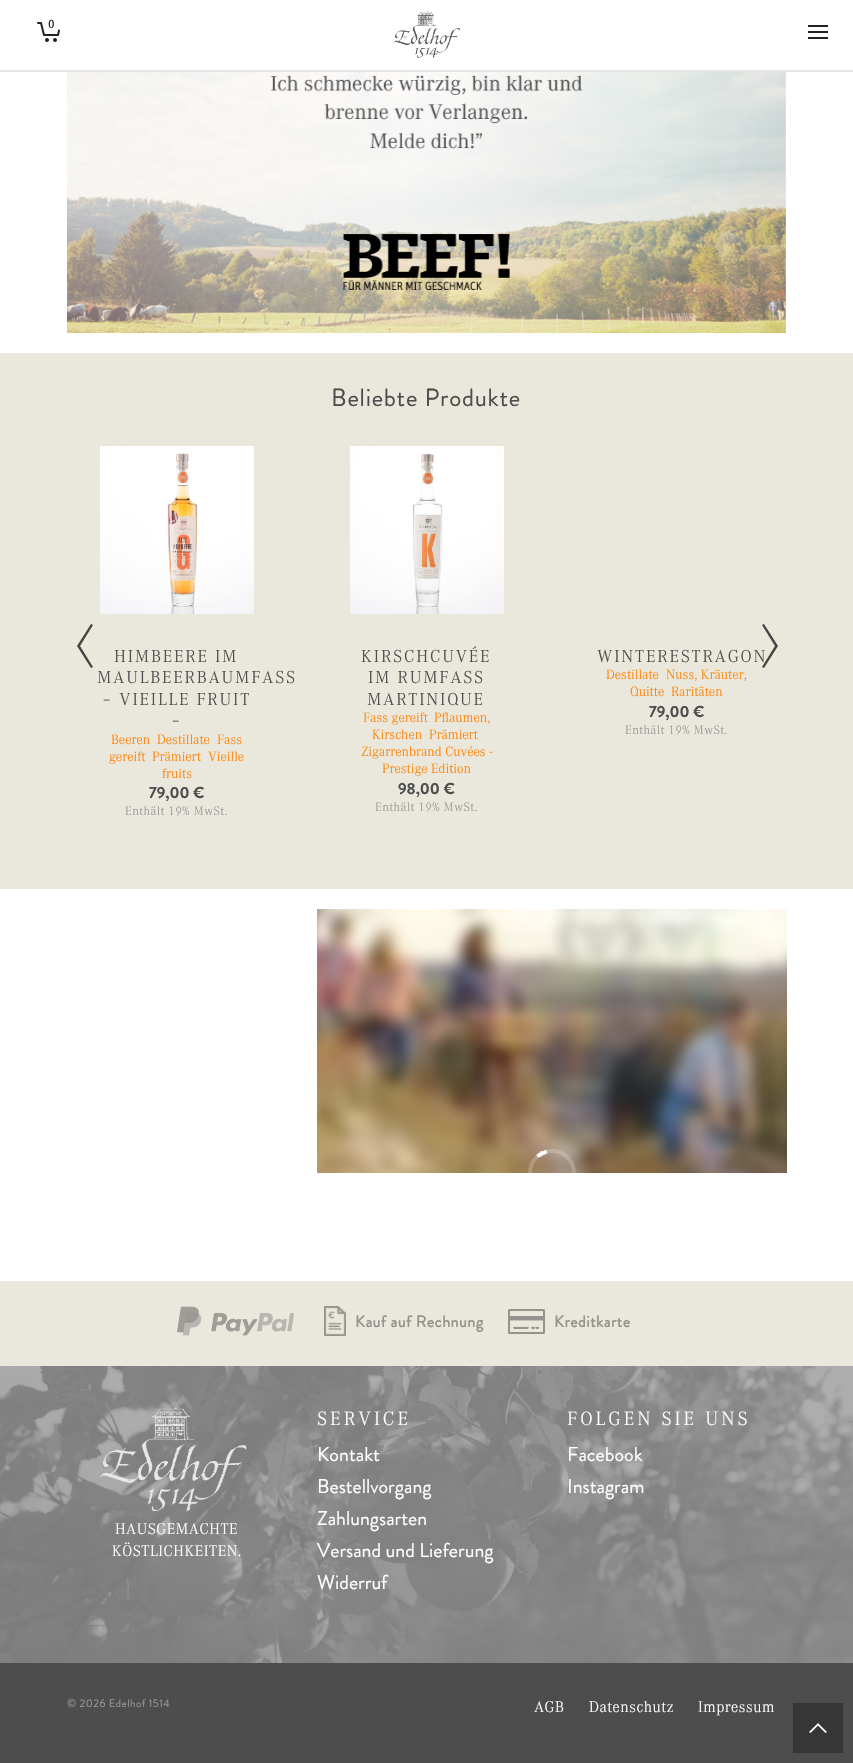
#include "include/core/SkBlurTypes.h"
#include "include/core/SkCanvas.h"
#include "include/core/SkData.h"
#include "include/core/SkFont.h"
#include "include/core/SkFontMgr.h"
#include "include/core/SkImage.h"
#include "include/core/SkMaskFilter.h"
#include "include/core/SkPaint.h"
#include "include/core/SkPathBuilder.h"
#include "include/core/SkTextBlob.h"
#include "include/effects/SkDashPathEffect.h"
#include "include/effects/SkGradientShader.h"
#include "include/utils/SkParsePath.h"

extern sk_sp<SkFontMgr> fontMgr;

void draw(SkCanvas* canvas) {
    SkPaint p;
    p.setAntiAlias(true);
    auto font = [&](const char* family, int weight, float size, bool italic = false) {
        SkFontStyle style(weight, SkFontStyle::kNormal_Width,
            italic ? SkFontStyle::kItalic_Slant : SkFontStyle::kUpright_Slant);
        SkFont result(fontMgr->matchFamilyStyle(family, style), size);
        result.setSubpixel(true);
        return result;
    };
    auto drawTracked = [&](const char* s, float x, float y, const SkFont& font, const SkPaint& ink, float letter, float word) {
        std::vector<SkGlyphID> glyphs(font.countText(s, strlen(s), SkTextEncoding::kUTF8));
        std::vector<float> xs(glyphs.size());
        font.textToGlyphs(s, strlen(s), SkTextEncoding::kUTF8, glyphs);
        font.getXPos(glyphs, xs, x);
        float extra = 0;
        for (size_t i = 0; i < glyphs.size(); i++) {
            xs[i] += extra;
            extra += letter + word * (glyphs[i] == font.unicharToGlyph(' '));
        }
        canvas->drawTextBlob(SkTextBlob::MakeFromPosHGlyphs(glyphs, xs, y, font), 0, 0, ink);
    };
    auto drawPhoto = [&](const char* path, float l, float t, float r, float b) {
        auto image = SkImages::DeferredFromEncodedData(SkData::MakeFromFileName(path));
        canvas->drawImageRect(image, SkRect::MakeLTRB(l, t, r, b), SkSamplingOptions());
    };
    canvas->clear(0xFFFFFFFF);
    p.setColor(0xFFE4E4E4);
    canvas->drawRect(SkRect::MakeLTRB(0, 70, 853, 72), p);
    drawPhoto("media/1.png", 37, 22, 60, 42);
    auto font1 = font("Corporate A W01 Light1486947", 700, 12);
    p.setColor(0xFF222222);
    canvas->drawString("0", 48, 28, font1, p);
    drawPhoto("media/2.png", 393, 11, 460, 58);
    {
        const struct { float l, t, r, b; SkColor color; } items[] = {
            {808, 31, 828, 33, 0xFF222222},
            {808, 25, 828, 27, 0xFF222222},
            {808, 37, 828, 39, 0xFF222222},
        };
        for (auto [l, t, r, b, color] : items) {
            p.setColor(color);
            canvas->drawRect(SkRect::MakeLTRB(l, t, r, b), p);
        }
    }
    drawPhoto("media/4.png", 785, 243, 786, 333);
    drawPhoto("media/3.png", 67, 72, 786, 333);
    p.setColor(0xFFEAE7DD);
    canvas->drawRect(SkRect::MakeLTRB(0, 353, 853, 889), p);
    auto font2 = font("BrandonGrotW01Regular", 400, 25);
    p.setColor(0xFF4D4D4D);
    drawTracked("Beliebte Produkte", 331, 406, font2, p, 0.75f, 0);
    p.setColor(0xFF444444);
    canvas->drawPath(SkPathBuilder().moveTo(91, 668).lineTo(93, 667).lineTo(80, 646).lineTo(93, 625).lineTo(91, 624).lineTo(77, 646).close().detach(), p);
    auto font3 = font("Corporate A W01 Light1486947", 300, 18);
    p.setColor(0xFF4D4D4D);
    drawTracked("WINTERESTRAGON", 597, 662, font3, p, 1.75f, 0);
    p.setColor(0xFF444444);
    canvas->drawPath(SkPathBuilder().moveTo(764, 668).lineTo(762, 667).lineTo(775, 646).lineTo(762, 625).lineTo(764, 624).lineTo(778, 646).close().detach(), p);
    drawPhoto("media/5.png", 100, 446, 254, 614);
    p.setColor(0xFF4D4D4D);
    {
        const struct { const char* s; float x, y; } items[] = {
            {"HIMBEERE IM", 114, 662},
            {"MAULBEERBAUMFASS", 97, 683},
            {"– VIEILLE FRUIT", 102, 705},
            {"–", 171, 726},
        };
        for (auto [s, x, y] : items) {
            drawTracked(s, x, y, font3, p, 1.75f, 0);
        }
    }
    auto font4 = font("Corporate A W01 Light1486947", 300, 14);
    p.setColor(0xFFFF8200);
    {
        const struct { const char* s; float x, y; } items[] = {
            {"Beeren", 111, 744},
            {"Destillate", 157, 744},
            {"Fass", 217, 744},
            {"gereift", 109, 761},
            {"Prämiert", 152, 761},
            {"Vieille", 208, 761},
            {"fruits", 162, 778},
        };
        for (auto [s, x, y] : items) {
            canvas->drawString(s, x, y, font4, p);
        }
    }
    auto font5 = font("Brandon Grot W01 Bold", 700, 16);
    p.setColor(0xFF4D4D4D);
    canvas->drawString("79,00 €", 149, 798, font5, p);
    auto font6 = font("Corporate A W01 Light1486947", 300, 12.75f);
    p.setColor(0xFF999999);
    drawTracked("Enthält 19% MwSt.", 125, 815, font6, p, 0.4f, 0);
    drawPhoto("media/6.png", 350, 446, 504, 614);
    p.setColor(0xFF4D4D4D);
    {
        const struct { const char* s; float x, y; } items[] = {
            {"KIRSCHCUVÉE", 361, 662},
            {"IM RUMFASS", 368, 683},
            {"MARTINIQUE", 367, 705},
        };
        for (auto [s, x, y] : items) {
            drawTracked(s, x, y, font3, p, 1.75f, 0);
        }
    }
    p.setColor(0xFFFF8200);
    {
        const struct { const char* s; float x, y; } items[] = {
            {"Fass gereift", 363, 722},
            {"Pflaumen,", 434, 722},
            {"Kirschen", 372, 739},
            {"Prämiert", 429, 739},
            {"Zigarrenbrand Cuvées -", 361, 756},
            {"Prestige Edition", 382, 773},
        };
        for (auto [s, x, y] : items) {
            canvas->drawString(s, x, y, font4, p);
        }
    }
    p.setColor(0xFF4D4D4D);
    canvas->drawString("98,00 €", 398, 794, font5, p);
    p.setColor(0xFF999999);
    drawTracked("Enthält 19% MwSt.", 375, 811, font6, p, 0.4f, 0);
    p.setColor(0xFFFF8200);
    {
        const struct { const char* s; float x, y; } items[] = {
            {"Destillate", 606, 679},
            {"Nuss, Kräuter,", 666, 679},
            {"Quitte", 630, 696},
            {"Raritäten", 671, 696},
        };
        for (auto [s, x, y] : items) {
            canvas->drawString(s, x, y, font4, p);
        }
    }
    p.setColor(0xFF4D4D4D);
    canvas->drawString("79,00 €", 649, 717, font5, p);
    p.setColor(0xFF999999);
    drawTracked("Enthält 19% MwSt.", 625, 734, font6, p, 0.4f, 0);
    drawPhoto("media/7.png", 317, 909, 787, 1173);
    p.setColor(0xFFEAE7DD);
    canvas->drawRect(SkRect::MakeLTRB(0, 1281, 853, 1366), p);
    drawPhoto("media/8.png", 177, 1306, 294, 1336);
    drawPhoto("media/9.png", 324, 1306, 346, 1336);
    auto font7 = font("BrandonGrotW01Regular", 700, 16);
    p.setColor(0xFF96948E);
    drawTracked("Kauf auf Rechnung", 355, 1327, font7, p, 0.5f, 0);
    drawPhoto("media/10.png", 508, 1309, 545, 1334);
    drawTracked("Kreditkarte", 554, 1327, font7, p, 0.5f, 0);
    drawPhoto("media/11.png", 0, 1366, 853, 1663);
    auto font8 = font("Corporate A W01 Light1486947", 300, 20);
    p.setColor(0xFFFFFFFF);
    drawTracked("SERVICE", 317, 1425, font8, p, 3, 0);
    auto font9 = font("BrandonGrotW01Regular", 400, 20);
    {
        const struct { const char* s; float x, y; } items[] = {
            {"Kontakt", 317, 1461},
            {"Bestellvorgang", 317, 1493},
            {"Zahlungsarten", 317, 1525},
            {"Versand und Lieferung", 317, 1557},
            {"Widerruf", 317, 1589},
        };
        for (auto [s, x, y] : items) {
            canvas->drawString(s, x, y, font9, p);
        }
    }
    drawTracked("FOLGEN SIE UNS", 567, 1425, font8, p, 3, 0);
    canvas->drawString("Facebook", 567, 1461, font9, p);
    canvas->drawString("Instagram", 567, 1493, font9, p);
    drawPhoto("media/12.png", 100, 1407, 247, 1512);
    auto font10 = font("Corporate A W01 Light1486947", 300, 16);
    drawTracked("HAUSGEMACHTE", 115, 1534, font10, p, 0.5f, 0);
    drawTracked("KÖSTLICHKEITEN.", 112, 1556, font10, p, 0.5f, 0);
    p.setColor(0xFF4D4D4D);
    canvas->drawRect(SkRect::MakeLTRB(0, 1663, 853, 1763), p);
    auto font11 = font("BrandonGrotW01Regular", 400, 11);
    p.setColor(0xFF999999);
    drawTracked("© 2026 Edelhof 1514", 67, 1707, font11, p, 0.5f, 0);
    p.setColor(0xFFFFFFFF);
    {
        const struct { const char* s; float x, y; } items[] = {
            {"AGB", 534, 1712},
            {"Datenschutz", 589, 1712},
            {"Impressum", 698, 1712},
        };
        for (auto [s, x, y] : items) {
            drawTracked(s, x, y, font10, p, 0.5f, 0);
        }
    }
    p.setColor(0xFF363636);
    canvas->drawRect(SkRect::MakeLTRB(793, 1703, 843, 1753), p);
    p.setColor(0xFFFFFFFF);
    canvas->drawPath(SkPathBuilder().moveTo(809, 1732).lineTo(810.5f, 1733).lineTo(818, 1725.5f).lineTo(825.5f, 1733).lineTo(827, 1732).lineTo(818, 1723).close().detach(), p);
}
